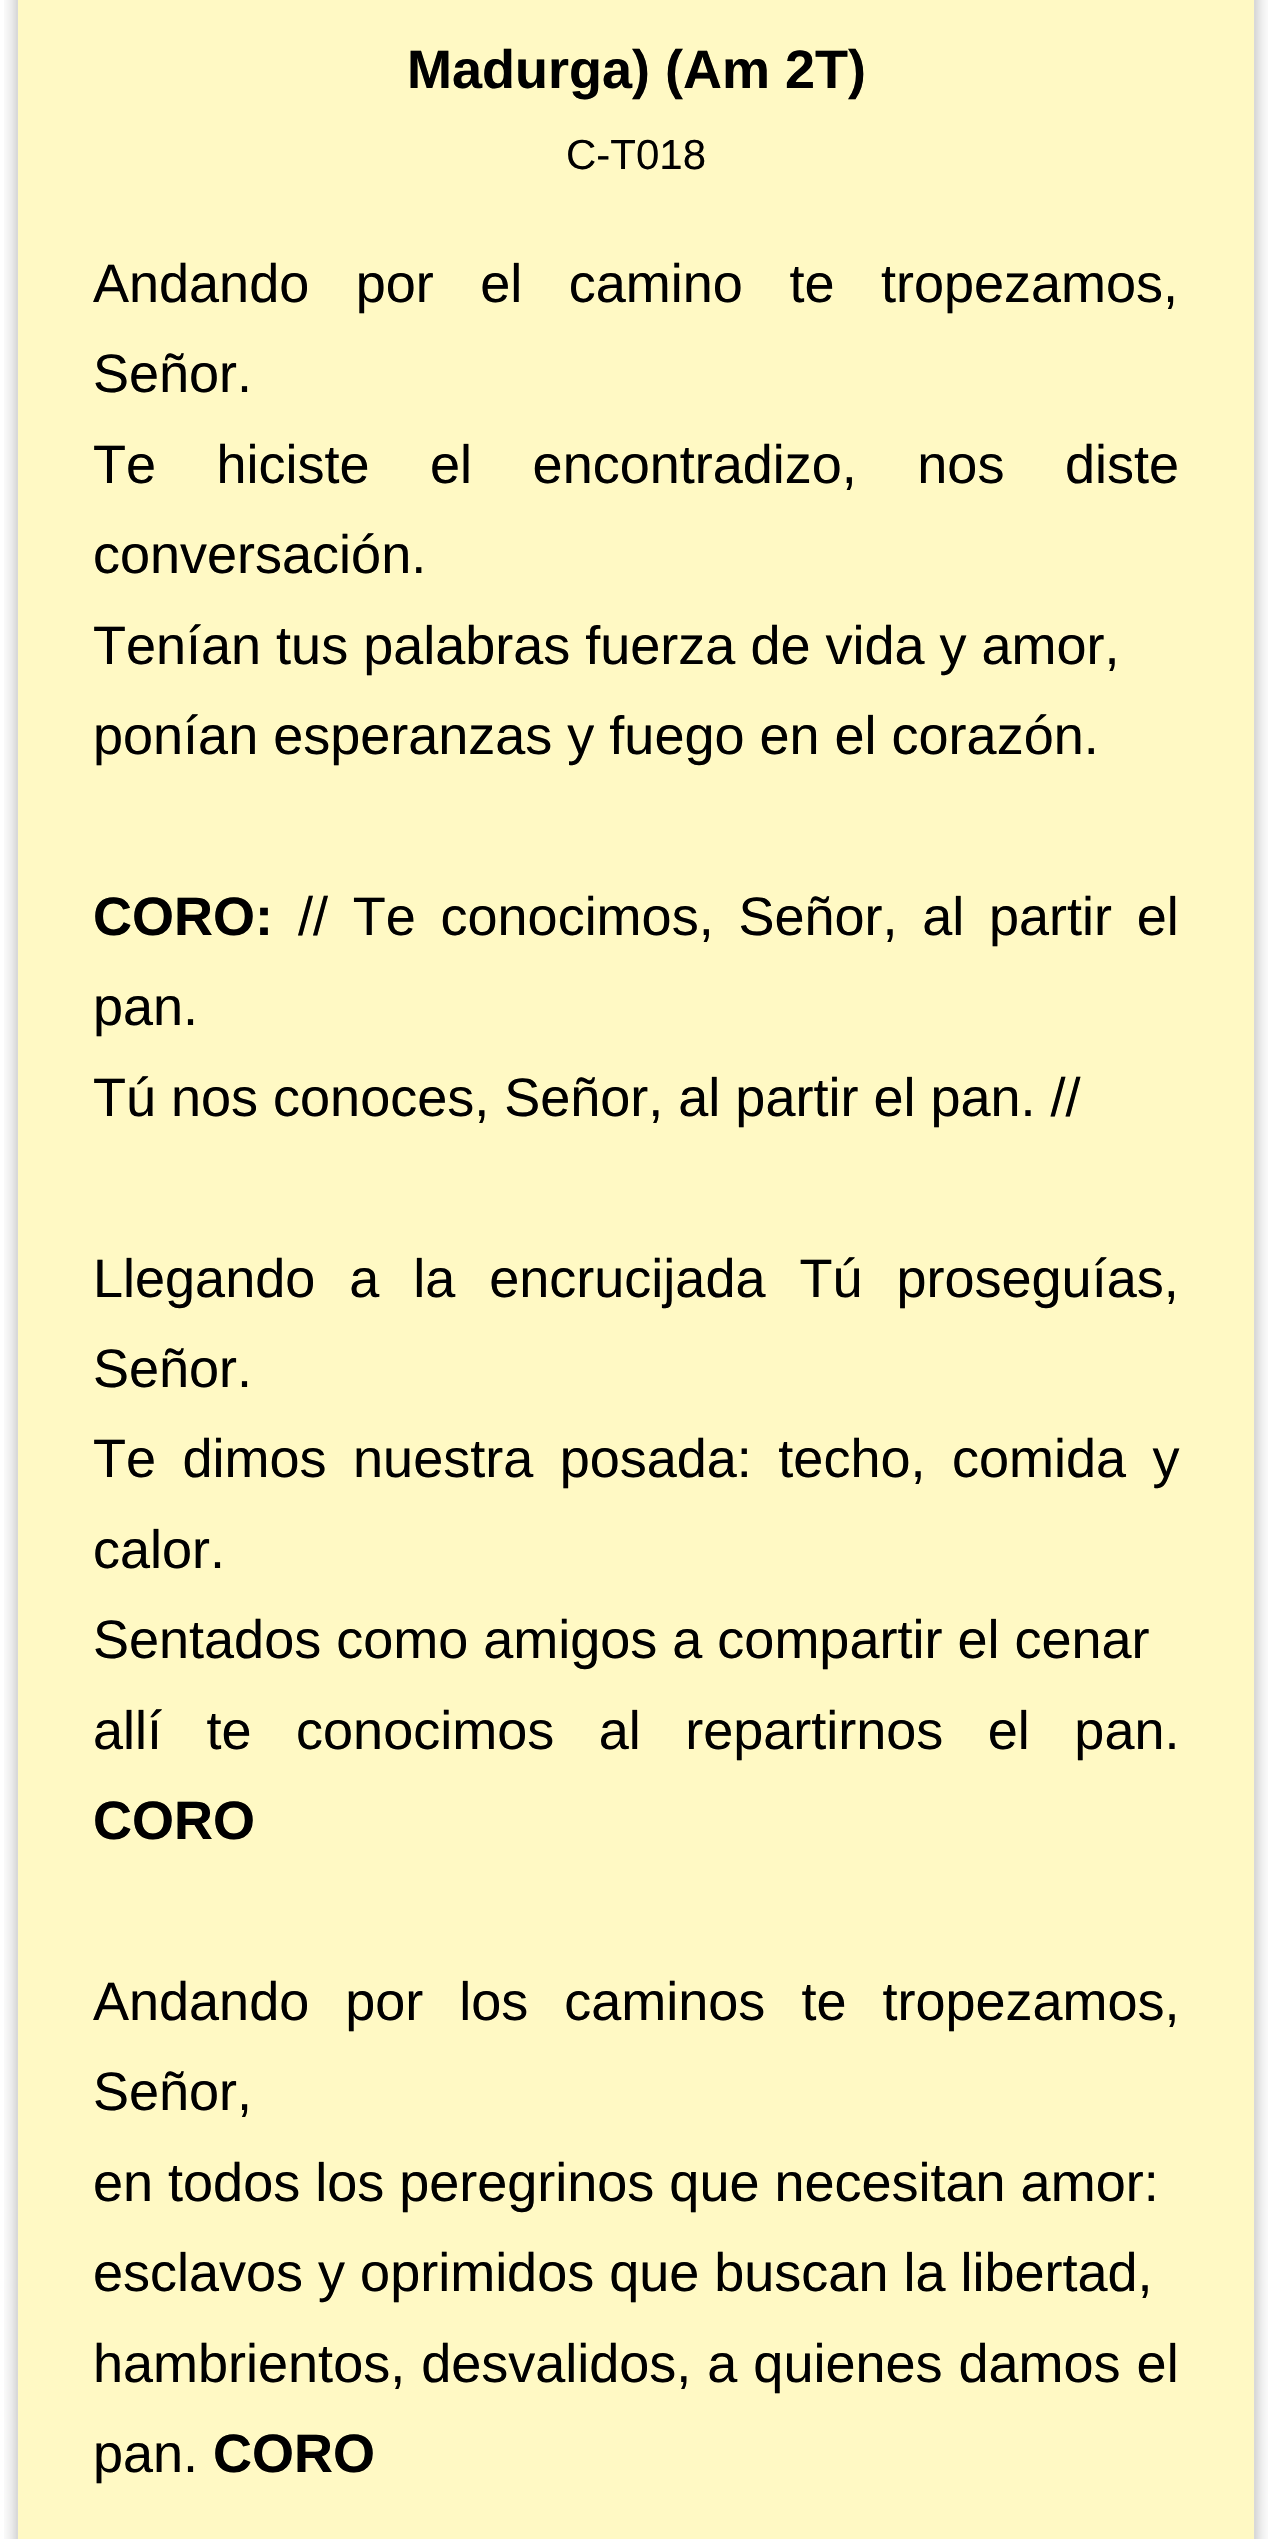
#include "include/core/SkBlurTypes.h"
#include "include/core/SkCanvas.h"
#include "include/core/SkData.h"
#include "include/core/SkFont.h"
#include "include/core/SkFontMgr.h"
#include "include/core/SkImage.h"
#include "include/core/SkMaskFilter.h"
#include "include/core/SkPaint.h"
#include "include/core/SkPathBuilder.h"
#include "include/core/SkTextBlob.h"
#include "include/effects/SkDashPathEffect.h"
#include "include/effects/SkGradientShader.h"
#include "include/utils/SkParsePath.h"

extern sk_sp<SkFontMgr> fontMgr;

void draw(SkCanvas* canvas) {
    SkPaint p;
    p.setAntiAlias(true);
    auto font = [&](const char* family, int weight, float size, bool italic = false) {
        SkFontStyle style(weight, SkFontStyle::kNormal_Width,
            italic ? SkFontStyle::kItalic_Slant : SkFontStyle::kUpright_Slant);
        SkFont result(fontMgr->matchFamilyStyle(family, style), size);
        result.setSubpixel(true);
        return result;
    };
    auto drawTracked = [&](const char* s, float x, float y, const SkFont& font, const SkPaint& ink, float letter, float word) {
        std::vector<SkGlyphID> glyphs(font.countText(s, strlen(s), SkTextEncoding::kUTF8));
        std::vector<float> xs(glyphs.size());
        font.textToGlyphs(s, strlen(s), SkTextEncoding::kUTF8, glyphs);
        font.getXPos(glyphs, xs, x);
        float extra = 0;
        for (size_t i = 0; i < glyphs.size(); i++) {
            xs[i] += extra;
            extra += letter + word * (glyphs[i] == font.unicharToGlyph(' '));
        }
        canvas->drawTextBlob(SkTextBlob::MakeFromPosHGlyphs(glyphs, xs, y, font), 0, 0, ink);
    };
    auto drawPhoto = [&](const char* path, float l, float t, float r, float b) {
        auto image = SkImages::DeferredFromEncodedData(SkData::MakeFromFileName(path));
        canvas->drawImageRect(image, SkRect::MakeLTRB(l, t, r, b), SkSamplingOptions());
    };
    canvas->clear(0xFFFFFFFF);
    drawPhoto("media/1.png", 4, 0, 1268, 2539);
    p.setColor(0xFFFFF9C4);
    canvas->drawRect(SkRect::MakeLTRB(18, 0, 1254, 2539), p);
    auto font1 = font("Liberation Sans", 700, 54);
    p.setColor(0xFF000000);
    canvas->drawString("Madurga) (Am 2T)", 407, 88, font1, p);
    auto font2 = font("Liberation Sans", 400, 42);
    canvas->drawString("C-T018", 566, 169, font2, p);
    auto font3 = font("Liberation Sans", 400, 54);
    drawTracked("Andando por el camino te tropezamos,", 93, 302, font3, p, 0, 31.5f);
    canvas->drawString("Señor.", 93, 392, font3, p);
    drawTracked("Te hiciste el encontradizo, nos diste", 93, 483, font3, p, 0, 45.5f);
    {
        const struct { const char* s; float x, y; } items[] = {
            {"conversación.", 93, 573},
            {"Tenían tus palabras fuerza de vida y amor,", 93, 664},
            {"ponían esperanzas y fuego en el corazón.", 93, 754},
        };
        for (auto [s, x, y] : items) {
            canvas->drawString(s, x, y, font3, p);
        }
    }
    canvas->drawString("CORO:", 93, 935, font1, p);
    drawTracked("// Te conocimos, Señor, al partir el", 298, 935, font3, p, 0, 9.75f);
    canvas->drawString("pan.", 93, 1025, font3, p);
    canvas->drawString("Tú nos conoces, Señor, al partir el pan. //", 93, 1116, font3, p);
    drawTracked("Llegando a la encrucijada Tú proseguías,", 93, 1297, font3, p, 0, 19);
    canvas->drawString("Señor.", 93, 1387, font3, p);
    drawTracked("Te dimos nuestra posada: techo, comida y", 93, 1477, font3, p, 0, 11.5f);
    canvas->drawString("calor.", 93, 1568, font3, p);
    canvas->drawString("Sentados como amigos a compartir el cenar", 93, 1658, font3, p);
    drawTracked("allí te conocimos al repartirnos el pan.", 93, 1749, font3, p, 0, 29.5f);
    canvas->drawString("CORO", 93, 1839, font1, p);
    drawTracked("Andando por los caminos te tropezamos,", 93, 2020, font3, p, 0, 21);
    {
        const struct { const char* s; float x, y; } items[] = {
            {"Señor,", 93, 2110},
            {"en todos los peregrinos que necesitan amor:", 93, 2201},
            {"esclavos y oprimidos que buscan la libertad,", 93, 2291},
        };
        for (auto [s, x, y] : items) {
            canvas->drawString(s, x, y, font3, p);
        }
    }
    drawTracked("hambrientos, desvalidos, a quienes damos el", 93, 2382, font3, p, 0, 1);
    canvas->drawString("pan.", 93, 2472, font3, p);
    canvas->drawString("CORO", 213, 2472, font1, p);
}
